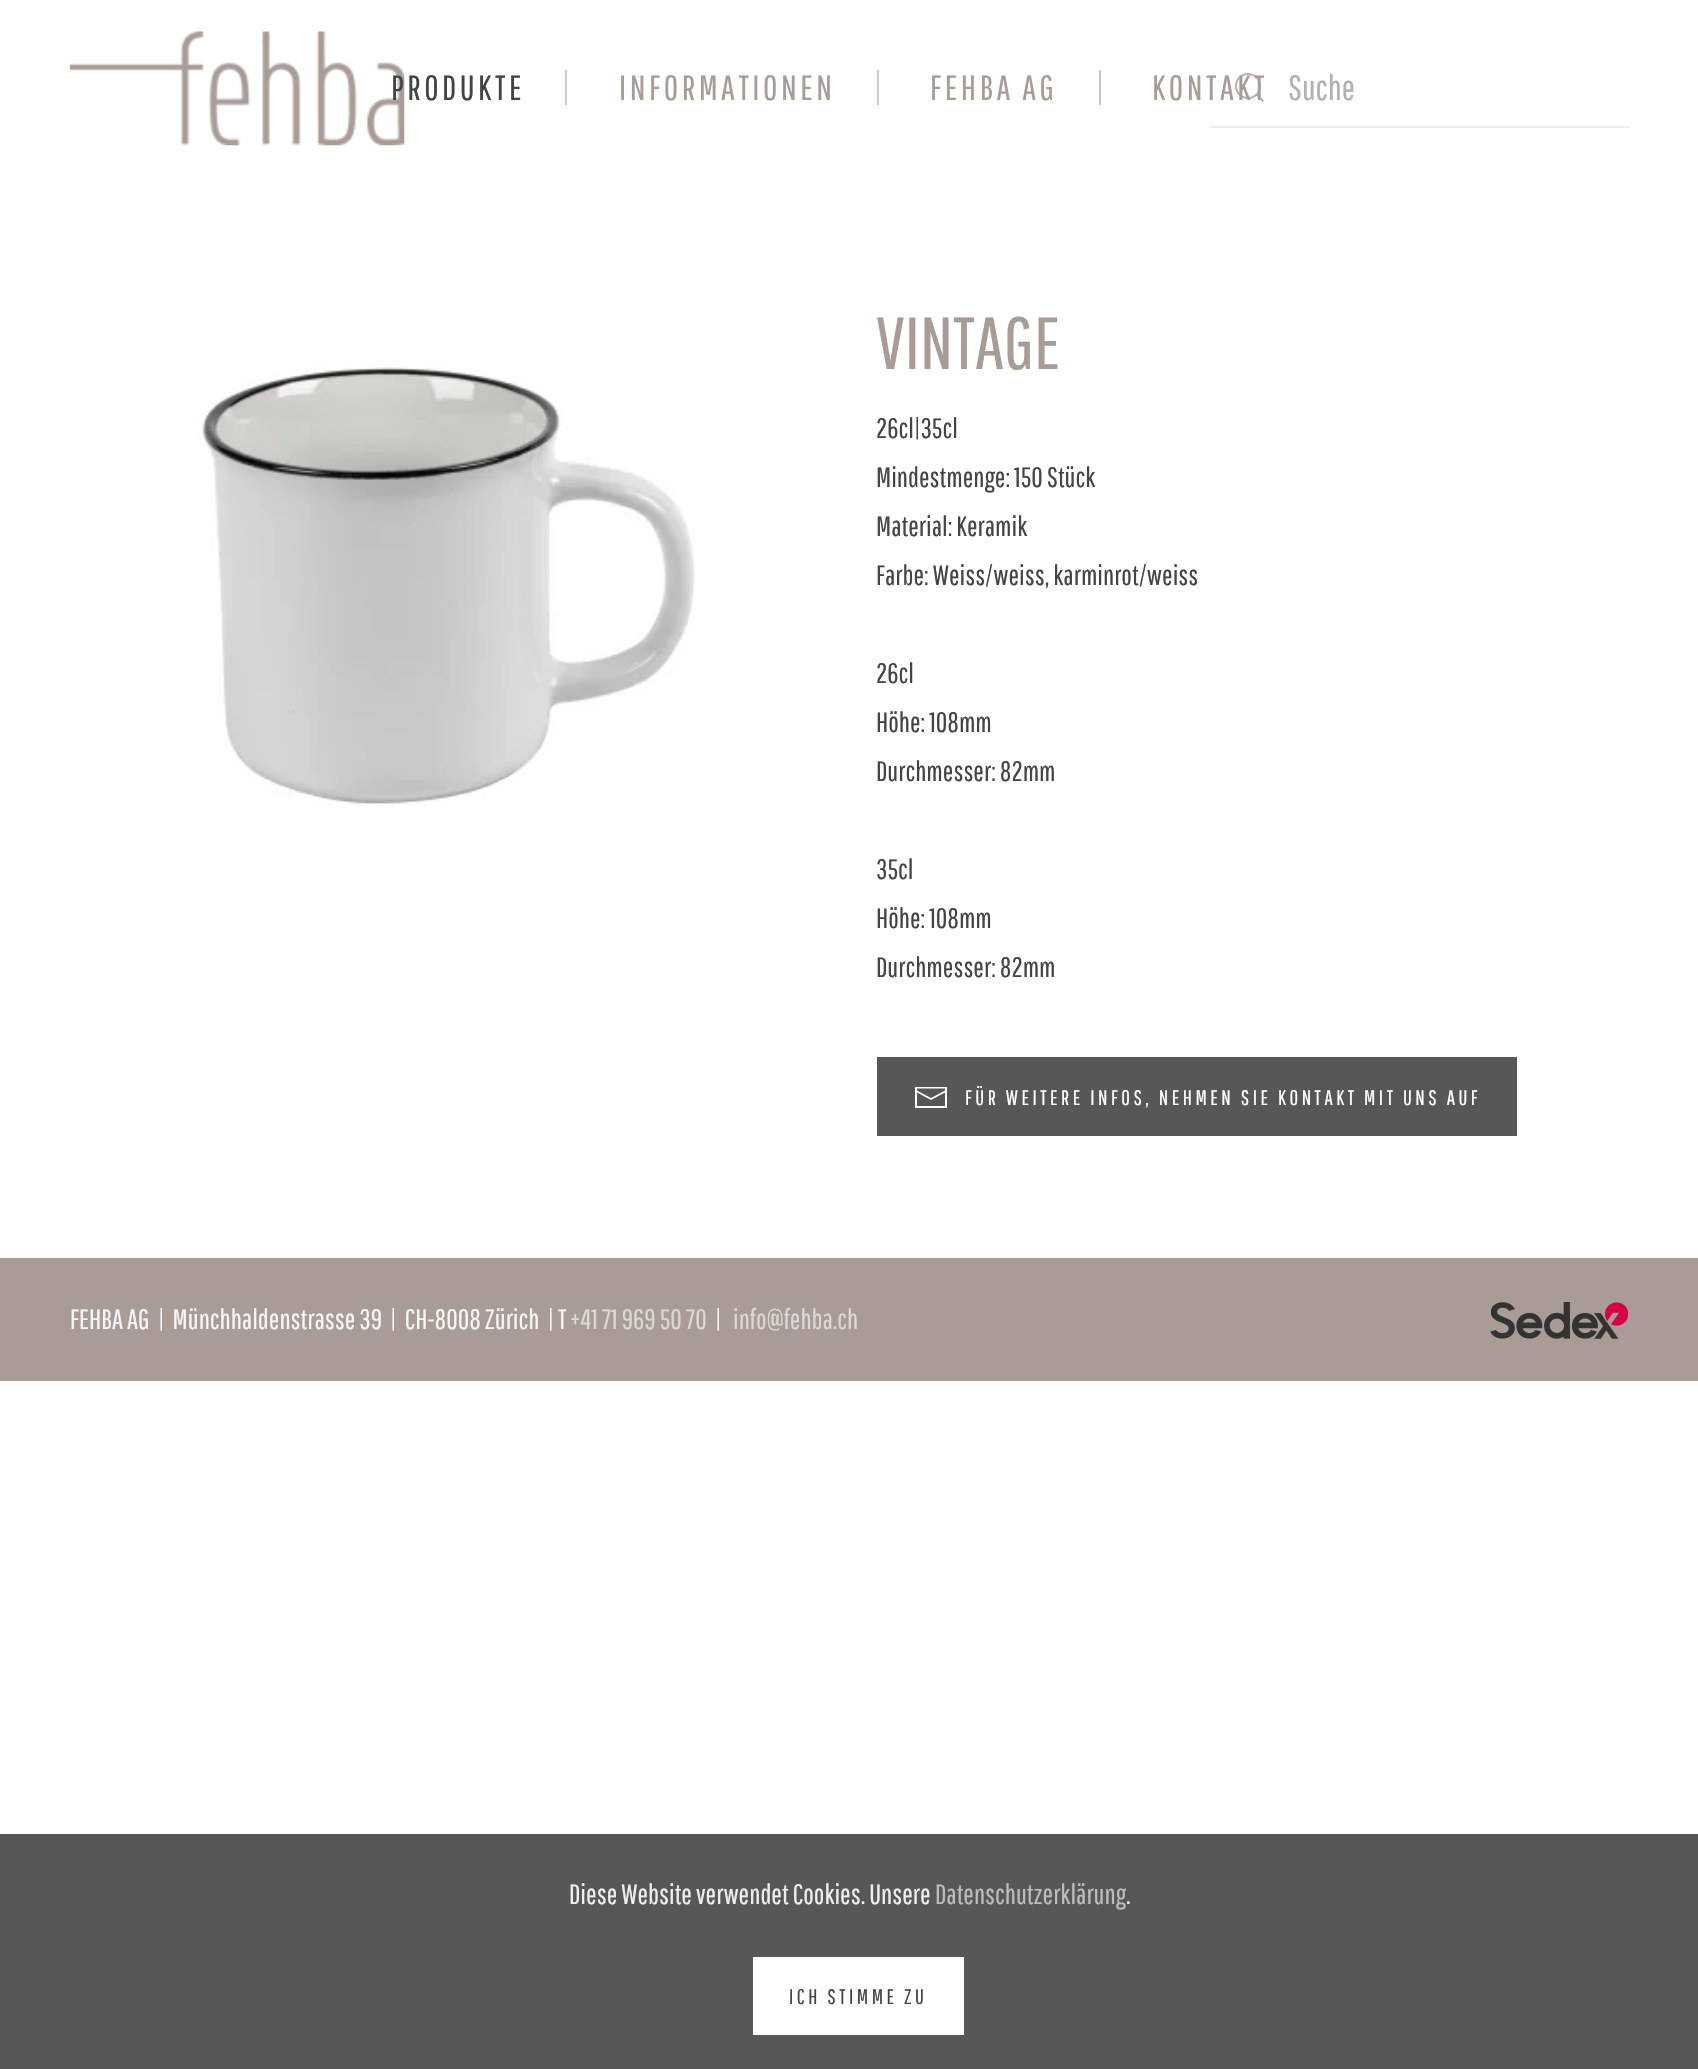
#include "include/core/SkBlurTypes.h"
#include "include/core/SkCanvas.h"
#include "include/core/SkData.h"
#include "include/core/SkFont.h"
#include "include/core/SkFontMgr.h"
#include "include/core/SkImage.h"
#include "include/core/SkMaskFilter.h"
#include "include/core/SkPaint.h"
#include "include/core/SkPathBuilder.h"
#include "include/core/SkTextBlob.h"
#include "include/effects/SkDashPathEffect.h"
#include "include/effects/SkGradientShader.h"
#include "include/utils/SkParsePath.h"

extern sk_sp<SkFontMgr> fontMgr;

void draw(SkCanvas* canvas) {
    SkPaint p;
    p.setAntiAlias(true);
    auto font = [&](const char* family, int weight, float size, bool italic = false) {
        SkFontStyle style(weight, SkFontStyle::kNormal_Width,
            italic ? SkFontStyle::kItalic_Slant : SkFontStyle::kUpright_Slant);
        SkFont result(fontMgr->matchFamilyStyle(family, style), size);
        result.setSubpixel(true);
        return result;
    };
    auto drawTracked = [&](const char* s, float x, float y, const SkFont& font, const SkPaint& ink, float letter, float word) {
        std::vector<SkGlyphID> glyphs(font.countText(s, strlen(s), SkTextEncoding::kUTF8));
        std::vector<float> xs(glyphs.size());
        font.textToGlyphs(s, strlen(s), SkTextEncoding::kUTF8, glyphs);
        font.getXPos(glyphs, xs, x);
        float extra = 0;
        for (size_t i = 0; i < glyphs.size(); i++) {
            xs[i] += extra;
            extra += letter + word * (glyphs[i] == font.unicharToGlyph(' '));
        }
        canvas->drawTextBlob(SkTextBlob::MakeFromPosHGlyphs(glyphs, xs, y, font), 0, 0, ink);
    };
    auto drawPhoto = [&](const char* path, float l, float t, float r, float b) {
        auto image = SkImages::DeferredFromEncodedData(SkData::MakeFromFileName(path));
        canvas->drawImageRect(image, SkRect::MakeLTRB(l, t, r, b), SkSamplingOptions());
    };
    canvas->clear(0xFFFFFFFF);
    drawPhoto("media/1.png", 70, 31, 405, 146);
    auto font1 = font("Pathway Gothic One", 400, 35);
    p.setColor(0xFF444444);
    drawTracked("PRODUKTE", 391, 100, font1, p, 3.5f, 0);
    p.setColor(0xFFC5CACF);
    canvas->drawRect(SkRect::MakeLTRB(565, 70, 567, 105), p);
    p.setColor(0xFFA99C96);
    drawTracked("INFORMATIONEN", 619, 100, font1, p, 3.5f, 0);
    p.setColor(0xFFC5CACF);
    canvas->drawRect(SkRect::MakeLTRB(877, 70, 879, 105), p);
    p.setColor(0xFFA99C96);
    drawTracked("FEHBA AG", 930, 100, font1, p, 3.5f, 0);
    p.setColor(0xFFC5CACF);
    canvas->drawRect(SkRect::MakeLTRB(1099, 70, 1101, 105), p);
    p.setStyle(SkPaint::kStroke_Style);
    p.setStrokeWidth(1.9f);
    p.setColor(0xFFB1B1B1);
    canvas->drawCircle(1248, 86, 12, p);
    canvas->drawPath(SkPathBuilder().moveTo(1256.5f, 94.5f).lineTo(1263.5f, 101.5f).close().detach(), p);
    p.setStyle(SkPaint::kFill_Style);
    p.setColor(0xFFA99C96);
    drawTracked("KONTAKT", 1152, 100, font1, p, 3.5f, 0);
    p.setColor(0xFFEEEEEE);
    canvas->drawRect(SkRect::MakeLTRB(1209, 126, 1629, 128), p);
    p.setColor(0xFFB1B1B1);
    canvas->drawString("Suche", 1288, 100, font1, p);
    drawPhoto("media/2.png", 198, 367, 695, 805);
    auto font2 = font("Pathway Gothic One", 400, 73.5f);
    p.setColor(0xFFA99C96);
    canvas->drawString("VINTAGE", 876, 369, font2, p);
    auto font3 = font("Pathway Gothic One", 400, 28);
    p.setColor(0xFF444444);
    {
        const struct { const char* s; float x, y; } items[] = {
            {"26cl|35cl", 876, 438},
            {"Mindestmenge: 150 Stück", 876, 487},
            {"Material: Keramik", 876, 536},
            {"Farbe: Weiss/weiss, karminrot/weiss", 876, 585},
            {"26cl", 876, 683},
            {"Höhe: 108mm", 876, 732},
            {"Durchmesser: 82mm", 876, 781},
            {"35cl", 876, 879},
            {"Höhe: 108mm", 876, 928},
            {"Durchmesser: 82mm", 876, 977},
        };
        for (auto [s, x, y] : items) {
            canvas->drawString(s, x, y, font3, p);
        }
    }
    p.setColor(0xFF575757);
    canvas->drawRect(SkRect::MakeLTRB(877, 1057, 1517, 1136), p);
    p.setStyle(SkPaint::kStroke_Style);
    p.setStrokeWidth(1.8f);
    p.setColor(0xFFFFFFFF);
    canvas->drawPath(SkPathBuilder().moveTo(916, 1091).lineTo(931, 1099).lineTo(946, 1091).detach(), p);
    p.setStyle(SkPaint::kFill_Style);
    canvas->drawPath(SkPathBuilder().moveTo(915, 1087).lineTo(915, 1108).lineTo(947, 1108).lineTo(947, 1087).close().moveTo(945, 1106).lineTo(917, 1106).lineTo(917, 1088.5f).lineTo(945, 1088.5f).close().detach(), p);
    auto font4 = font("Pathway Gothic One", 400, 21);
    drawTracked("FÜR WEITERE INFOS, NEHMEN SIE KONTAKT MIT UNS AUF", 965, 1105, font4, p, 3.5f, 0);
    p.setColor(0xFFA99C96);
    canvas->drawRect(SkRect::MakeLTRB(0, 1258, 1698, 1381), p);
    p.setColor(0xFFF6F5F5);
    canvas->drawString("FEHBA AG", 70, 1329, font3, p);
    canvas->drawString("|  Münchhaldenstrasse 39  |  CH-8008 Zürich  | T", 158, 1329, font3, p);
    p.setColor(0xFFDDD7D5);
    canvas->drawString("+41 71 969 50 70", 570, 1329, font3, p);
    p.setColor(0xFFF6F5F5);
    canvas->drawString("|", 715, 1329, font3, p);
    p.setColor(0xFFDDD7D5);
    canvas->drawString("info@fehba.ch", 733, 1329, font3, p);
    drawPhoto("media/3.png", 1490, 1302, 1628, 1339);
    p.setColor(0xFF575757);
    canvas->drawRect(SkRect::MakeLTRB(0, 1834, 1698, 2069), p);
    p.setColor(0xFFEEEEEE);
    canvas->drawString("Diese Website verwendet Cookies. Unsere", 569, 1904, font3, p);
    p.setColor(0xFFBCBCBC);
    canvas->drawString("Datenschutzerklärung", 935, 1904, font3, p);
    p.setColor(0xFFEEEEEE);
    canvas->drawString(".", 1126, 1904, font3, p);
    p.setColor(0xFFFFFFFF);
    canvas->drawRect(SkRect::MakeLTRB(753, 1957, 964, 2035), p);
    p.setColor(0xFF444444);
    drawTracked("ICH STIMME ZU", 789, 2004, font4, p, 3.5f, 0);
}
